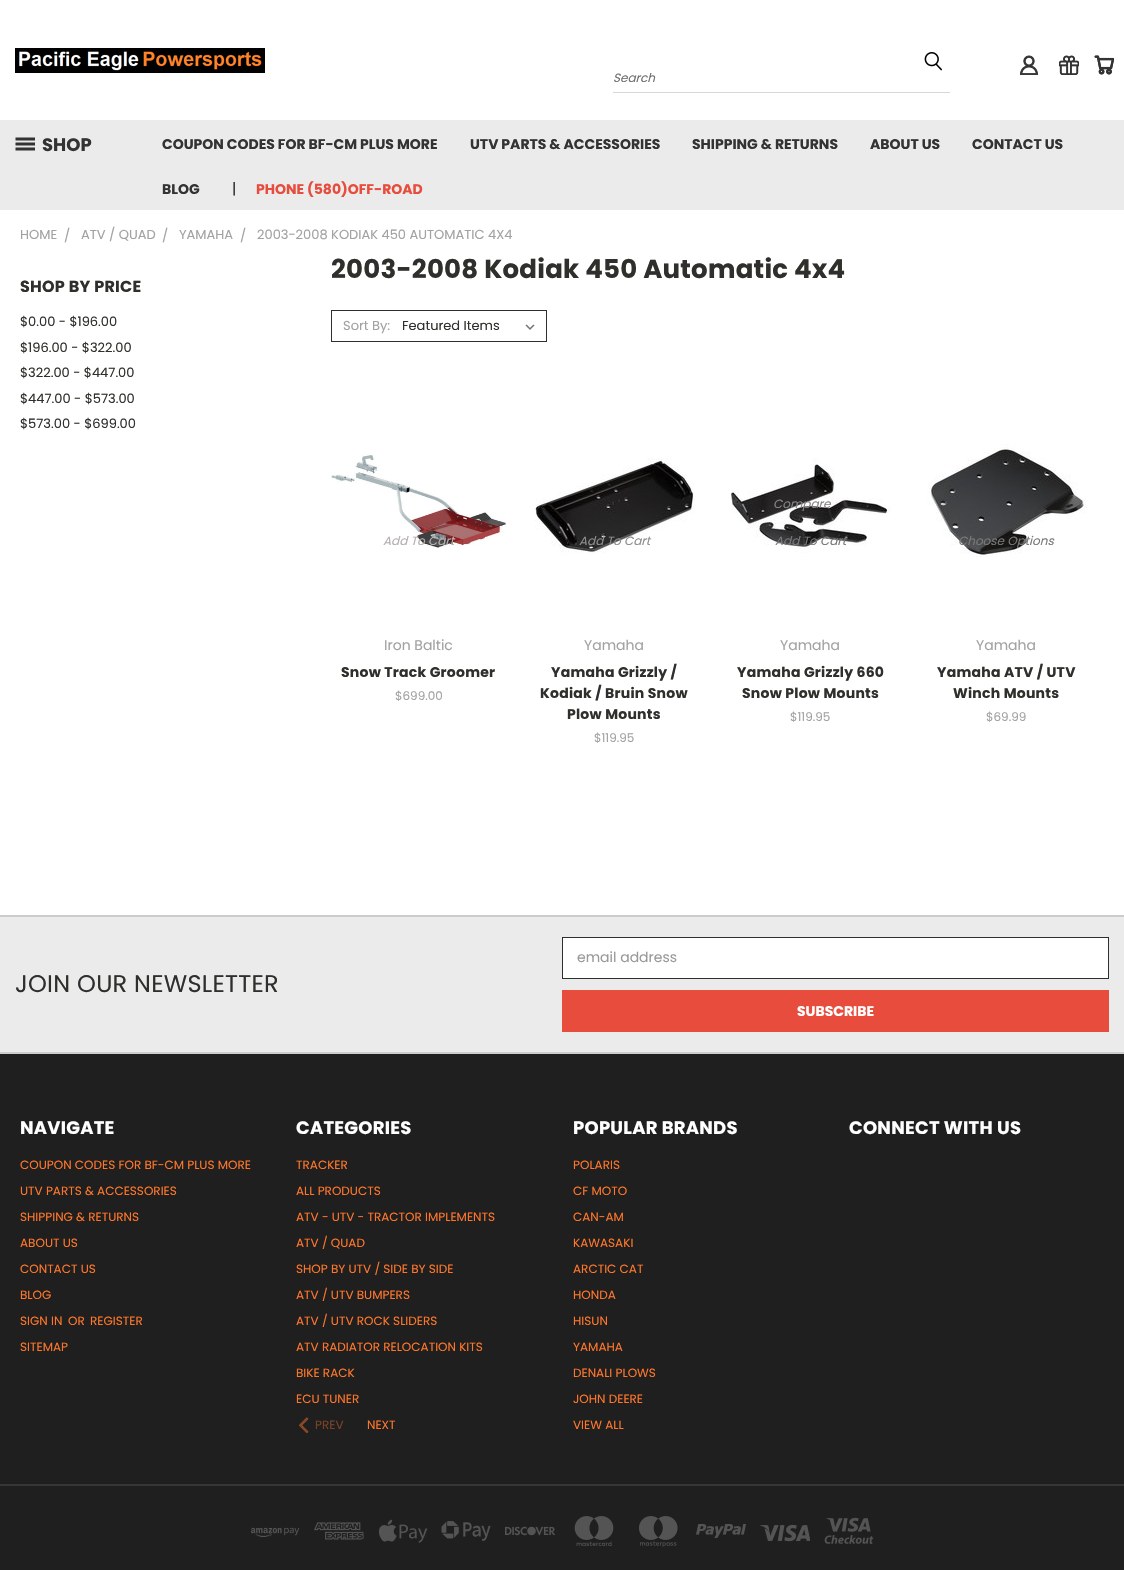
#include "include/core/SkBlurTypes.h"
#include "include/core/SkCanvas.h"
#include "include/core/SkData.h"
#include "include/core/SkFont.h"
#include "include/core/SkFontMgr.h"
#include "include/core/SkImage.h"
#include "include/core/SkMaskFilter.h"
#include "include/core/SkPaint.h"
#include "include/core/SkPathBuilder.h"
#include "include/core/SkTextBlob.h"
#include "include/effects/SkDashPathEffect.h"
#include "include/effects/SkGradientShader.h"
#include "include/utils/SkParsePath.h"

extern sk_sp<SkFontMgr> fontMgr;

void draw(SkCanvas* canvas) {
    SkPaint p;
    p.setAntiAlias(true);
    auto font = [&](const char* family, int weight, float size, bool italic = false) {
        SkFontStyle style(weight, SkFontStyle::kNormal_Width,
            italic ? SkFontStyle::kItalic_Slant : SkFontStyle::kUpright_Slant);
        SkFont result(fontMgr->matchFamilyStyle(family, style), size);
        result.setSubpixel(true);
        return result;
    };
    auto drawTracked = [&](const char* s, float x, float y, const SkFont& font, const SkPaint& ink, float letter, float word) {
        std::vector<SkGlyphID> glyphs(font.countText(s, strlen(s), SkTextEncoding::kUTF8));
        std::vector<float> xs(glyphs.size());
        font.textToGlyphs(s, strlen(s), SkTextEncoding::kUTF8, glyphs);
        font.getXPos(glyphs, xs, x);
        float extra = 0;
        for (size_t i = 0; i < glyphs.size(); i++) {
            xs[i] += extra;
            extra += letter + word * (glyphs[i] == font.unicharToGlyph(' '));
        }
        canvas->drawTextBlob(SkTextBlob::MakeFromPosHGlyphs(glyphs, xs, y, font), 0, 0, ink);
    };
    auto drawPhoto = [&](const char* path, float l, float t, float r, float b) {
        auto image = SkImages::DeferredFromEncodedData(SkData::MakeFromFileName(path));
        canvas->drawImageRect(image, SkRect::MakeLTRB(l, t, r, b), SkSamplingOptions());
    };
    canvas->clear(0xFFFFFFFF);
    drawPhoto("media/1.png", 15, 48, 265, 73);
    drawPhoto("media/2.png", 1020, 55, 1038, 75);
    drawPhoto("media/3.png", 1059, 55, 1079, 75);
    drawPhoto("media/4.png", 1094, 55, 1114, 75);
    drawPhoto("media/5.png", 924, 52, 942, 71);
    p.setColor(0xFFD7D7D7);
    canvas->drawRect(SkRect::MakeLTRB(613, 92, 950, 93), p);
    auto font1 = font("Poppins", 400, 12, true);
    p.setColor(0xFF70706E);
    canvas->drawString("Search", 613, 82, font1, p);
    p.setColor(0xFFEBEBEB);
    canvas->drawRect(SkRect::MakeLTRB(0, 120, 1124, 210), p);
    drawPhoto("media/6.png", 15, 137, 35, 151);
    auto font2 = font("Poppins", 700, 18);
    p.setColor(0xFF333333);
    canvas->drawString("SHOP", 42, 151, font2, p);
    auto font3 = font("Poppins", 700, 14);
    {
        const struct { const char* s; float x, y; } items[] = {
            {"COUPON CODES FOR BF-CM PLUS MORE", 162, 149},
            {"UTV PARTS & ACCESSORIES", 470, 149},
            {"SHIPPING & RETURNS", 692, 149},
            {"ABOUT US", 870, 149},
            {"CONTACT US", 972, 149},
            {"BLOG", 162, 194},
        };
        for (auto [s, x, y] : items) {
            canvas->drawString(s, x, y, font3, p);
        }
    }
    auto font4 = font("Poppins", 400, 15);
    p.setColor(0xFF2F2F2B);
    canvas->drawString("|", 232, 194, font4, p);
    p.setColor(0xFFE74C3C);
    canvas->drawString("PHONE (580)OFF-ROAD", 256, 194, font3, p);
    auto font5 = font("Poppins", 400, 13);
    p.setColor(0xFFA2A2A2);
    {
        const struct { const char* s; float x, y; } items[] = {
            {"HOME", 20, 239},
            {"/", 64, 240},
            {"ATV / QUAD", 81, 239},
            {"/", 162, 240},
            {"YAMAHA", 179, 239},
            {"/", 240, 240},
            {"2003-2008 KODIAK 450 AUTOMATIC 4X4", 257, 239},
        };
        for (auto [s, x, y] : items) {
            canvas->drawString(s, x, y, font5, p);
        }
    }
    auto font6 = font("Poppins", 700, 16);
    p.setColor(0xFF2F2F2B);
    drawTracked("SHOP BY PRICE", 20, 292, font6, p, 0.25f, 0);
    {
        const struct { const char* s; float x, y; } items[] = {
            {"$0.00 - $196.00", 20, 326},
            {"$196.00 - $322.00", 20, 352},
            {"$322.00 - $447.00", 20, 377},
            {"$447.00 - $573.00", 20, 403},
            {"$573.00 - $699.00", 20, 428},
        };
        for (auto [s, x, y] : items) {
            canvas->drawString(s, x, y, font5, p);
        }
    }
    auto font7 = font("Poppins", 700, 26);
    drawTracked("2003-2008 Kodiak 450 Automatic 4x4", 331, 278, font7, p, 0.25f, 0);
    p.setStyle(SkPaint::kStroke_Style);
    p.setStrokeWidth(1);
    canvas->drawRect(SkRect::MakeLTRB(331.5f, 310.5f, 546.5f, 341.5f), p);
    p.setStyle(SkPaint::kFill_Style);
    p.setColor(0xFFA2A2A2);
    canvas->drawString("Sort By:", 343, 330, font5, p);
    drawPhoto("media/7.png", 525, 324, 535, 330);
    p.setColor(0xFF2F2F2B);
    canvas->drawString("Featured Items", 402, 330, font5, p);
    drawPhoto("media/8.png", 331, 453, 506, 548);
    p.setColor(0xFFB6B0B0);
    canvas->drawString("Add To Cart", 383, 545, font1, p);
    auto font8 = font("Poppins", 400, 14);
    p.setColor(0xFFA2A2A2);
    canvas->drawString("Iron Baltic", 384, 650, font8, p);
    p.setColor(0xFF2F2F2B);
    drawTracked("Snow Track Groomer", 341, 677, font3, p, 0.25f, 0);
    auto font9 = font("Poppins", 400, 12);
    p.setColor(0xFFA2A2A2);
    canvas->drawString("$699.00", 395, 700, font9, p);
    drawPhoto("media/9.png", 535, 458, 695, 554);
    p.setColor(0xFF8E8E8E);
    canvas->drawString("Add To Cart", 579, 545, font1, p);
    p.setColor(0xFFA2A2A2);
    canvas->drawString("Yamaha", 584, 650, font8, p);
    p.setColor(0xFF2F2F2B);
    {
        const struct { const char* s; float x, y; } items[] = {
            {"Yamaha Grizzly /", 551, 677},
            {"Kodiak / Bruin Snow", 540, 698},
            {"Plow Mounts", 567, 719},
        };
        for (auto [s, x, y] : items) {
            drawTracked(s, x, y, font3, p, 0.25f, 0);
        }
    }
    p.setColor(0xFFA2A2A2);
    canvas->drawString("$119.95", 594, 742, font9, p);
    drawPhoto("media/10.png", 731, 458, 891, 553);
    p.setColor(0xFF868585);
    canvas->drawString("Compare", 773, 508, font1, p);
    p.setColor(0xFF787879);
    canvas->drawString("Add To Cart", 775, 545, font1, p);
    p.setColor(0xFFA2A2A2);
    canvas->drawString("Yamaha", 780, 650, font8, p);
    p.setColor(0xFF2F2F2B);
    drawTracked("Yamaha Grizzly 660", 737, 677, font3, p, 0.25f, 0);
    drawTracked("Snow Plow Mounts", 742, 698, font3, p, 0.25f, 0);
    p.setColor(0xFFA2A2A2);
    canvas->drawString("$119.95", 790, 721, font9, p);
    drawPhoto("media/11.png", 927, 444, 1087, 557);
    p.setColor(0xFF787879);
    canvas->drawString("Choose Options", 958, 545, font1, p);
    p.setColor(0xFFA2A2A2);
    canvas->drawString("Yamaha", 976, 650, font8, p);
    p.setColor(0xFF2F2F2B);
    drawTracked("Yamaha ATV / UTV", 937, 677, font3, p, 0.25f, 0);
    drawTracked("Winch Mounts", 953, 698, font3, p, 0.25f, 0);
    p.setColor(0xFFA2A2A2);
    canvas->drawString("$69.99", 986, 721, font9, p);
    p.setColor(0xFFEBEBEB);
    canvas->drawRect(SkRect::MakeLTRB(0, 917, 1124, 1052), p);
    p.setColor(0xFFCDCCCC);
    canvas->drawRect(SkRect::MakeLTRB(0, 915, 1124, 917), p);
    auto font10 = font("Poppins", 400, 24);
    p.setColor(0xFF2F2F2B);
    drawTracked("JOIN OUR NEWSLETTER", 15, 992, font10, p, 0.25f, 0);
    p.setColor(0xFFFFFFFF);
    canvas->drawRect(SkRect::MakeLTRB(562.5f, 937.5f, 1108.5f, 978.5f), p);
    p.setStyle(SkPaint::kStroke_Style);
    p.setColor(0xFF2F2F2B);
    canvas->drawRect(SkRect::MakeLTRB(562.5f, 937.5f, 1108.5f, 978.5f), p);
    p.setStyle(SkPaint::kFill_Style);
    p.setColor(0xFF999999);
    canvas->drawString("email address", 577, 962, font8, p);
    p.setColor(0xFFE74C3C);
    canvas->drawRect(SkRect::MakeLTRB(562, 990, 1109, 1032), p);
    p.setColor(0xFFFFFFFF);
    canvas->drawString("SUBSCRIBE", 797, 1016, font3, p);
    p.setColor(0xFF1F1F1F);
    canvas->drawRect(SkRect::MakeLTRB(0, 1054, 1124, 1570), p);
    p.setColor(0xFFCDCCCC);
    canvas->drawRect(SkRect::MakeLTRB(0, 1052, 1124, 1054), p);
    p.setColor(0xFFFFFFFF);
    drawTracked("NAVIGATE", 20, 1134, font2, p, 0.25f, 0);
    p.setColor(0xFFFF762B);
    {
        const struct { const char* s; float x, y; } items[] = {
            {"COUPON CODES FOR BF-CM PLUS MORE", 20, 1169},
            {"UTV PARTS & ACCESSORIES", 20, 1195},
            {"SHIPPING & RETURNS", 20, 1221},
            {"ABOUT US", 20, 1247},
            {"CONTACT US", 20, 1273},
            {"BLOG", 20, 1299},
            {"SIGN IN", 20, 1325},
            {"OR", 68, 1325},
            {"REGISTER", 90, 1325},
            {"SITEMAP", 20, 1351},
        };
        for (auto [s, x, y] : items) {
            canvas->drawString(s, x, y, font9, p);
        }
    }
    p.setColor(0xFFFFFFFF);
    drawTracked("CATEGORIES", 296, 1134, font2, p, 0.25f, 0);
    p.setColor(0xFFFF762B);
    {
        const struct { const char* s; float x, y; } items[] = {
            {"TRACKER", 296, 1169},
            {"ALL PRODUCTS", 296, 1195},
            {"ATV - UTV - TRACTOR IMPLEMENTS", 296, 1221},
            {"ATV / QUAD", 296, 1247},
            {"SHOP BY UTV / SIDE BY SIDE", 296, 1273},
            {"ATV / UTV BUMPERS", 296, 1299},
            {"ATV / UTV ROCK SLIDERS", 296, 1325},
            {"ATV RADIATOR RELOCATION KITS", 296, 1351},
            {"BIKE RACK", 296, 1377},
            {"ECU TUNER", 296, 1403},
        };
        for (auto [s, x, y] : items) {
            canvas->drawString(s, x, y, font9, p);
        }
    }
    drawPhoto("media/12.png", 299, 1417, 309, 1433);
    p.setColor(0xFF794224);
    canvas->drawString("PREV", 315, 1429, font9, p);
    p.setColor(0xFFFF762B);
    canvas->drawString("NEXT", 367, 1429, font9, p);
    p.setColor(0xFFFFFFFF);
    drawTracked("POPULAR BRANDS", 573, 1134, font2, p, 0.25f, 0);
    p.setColor(0xFFFF762B);
    {
        const struct { const char* s; float x, y; } items[] = {
            {"POLARIS", 573, 1169},
            {"CF MOTO", 573, 1195},
            {"CAN-AM", 573, 1221},
            {"KAWASAKI", 573, 1247},
            {"ARCTIC CAT", 573, 1273},
            {"HONDA", 573, 1299},
            {"HISUN", 573, 1325},
            {"YAMAHA", 573, 1351},
            {"DENALI PLOWS", 573, 1377},
            {"JOHN DEERE", 573, 1403},
            {"VIEW ALL", 573, 1429},
        };
        for (auto [s, x, y] : items) {
            canvas->drawString(s, x, y, font9, p);
        }
    }
    p.setColor(0xFFFFFFFF);
    drawTracked("CONNECT WITH US", 849, 1134, font2, p, 0.25f, 0);
    p.setColor(0xFF363636);
    canvas->drawRect(SkRect::MakeLTRB(0, 1484, 1124, 1486), p);
    drawPhoto("media/13.png", 251, 1527, 300, 1537);
    drawPhoto("media/14.png", 314, 1522, 364, 1540);
    drawPhoto("media/15.png", 379, 1519, 428, 1543);
    drawPhoto("media/16.png", 441, 1521, 491, 1541);
    drawPhoto("media/17.png", 505, 1526, 555, 1536);
    drawPhoto("media/18.png", 574, 1516, 614, 1546);
    drawPhoto("media/19.png", 639, 1516, 678, 1547);
    drawPhoto("media/20.png", 696, 1524, 746, 1538);
    drawPhoto("media/21.png", 760, 1524, 810, 1542);
    drawPhoto("media/22.png", 824, 1517, 874, 1544);
}
